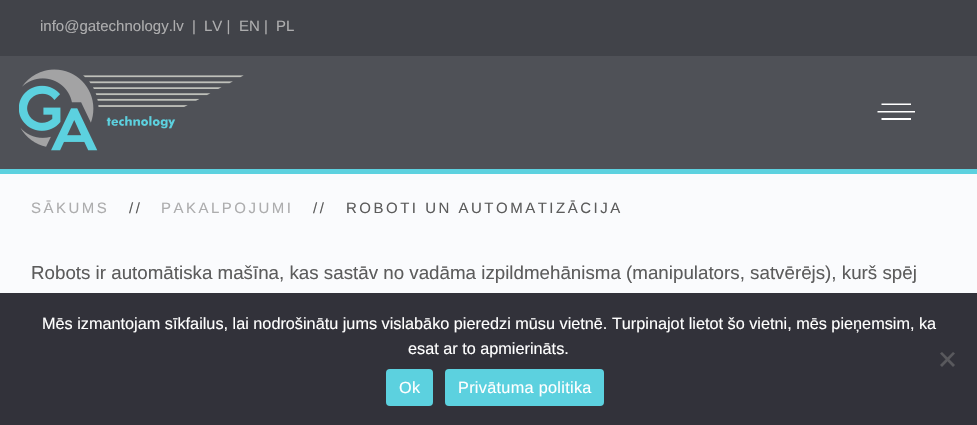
#include "include/core/SkBlurTypes.h"
#include "include/core/SkCanvas.h"
#include "include/core/SkData.h"
#include "include/core/SkFont.h"
#include "include/core/SkFontMgr.h"
#include "include/core/SkImage.h"
#include "include/core/SkMaskFilter.h"
#include "include/core/SkPaint.h"
#include "include/core/SkPathBuilder.h"
#include "include/core/SkTextBlob.h"
#include "include/effects/SkDashPathEffect.h"
#include "include/effects/SkGradientShader.h"
#include "include/utils/SkParsePath.h"

extern sk_sp<SkFontMgr> fontMgr;

void draw(SkCanvas* canvas) {
    SkPaint p;
    p.setAntiAlias(true);
    auto font = [&](const char* family, int weight, float size, bool italic = false) {
        SkFontStyle style(weight, SkFontStyle::kNormal_Width,
            italic ? SkFontStyle::kItalic_Slant : SkFontStyle::kUpright_Slant);
        SkFont result(fontMgr->matchFamilyStyle(family, style), size);
        result.setSubpixel(true);
        return result;
    };
    auto drawTracked = [&](const char* s, float x, float y, const SkFont& font, const SkPaint& ink, float letter, float word) {
        std::vector<SkGlyphID> glyphs(font.countText(s, strlen(s), SkTextEncoding::kUTF8));
        std::vector<float> xs(glyphs.size());
        font.textToGlyphs(s, strlen(s), SkTextEncoding::kUTF8, glyphs);
        font.getXPos(glyphs, xs, x);
        float extra = 0;
        for (size_t i = 0; i < glyphs.size(); i++) {
            xs[i] += extra;
            extra += letter + word * (glyphs[i] == font.unicharToGlyph(' '));
        }
        canvas->drawTextBlob(SkTextBlob::MakeFromPosHGlyphs(glyphs, xs, y, font), 0, 0, ink);
    };
    auto drawPhoto = [&](const char* path, float l, float t, float r, float b) {
        auto image = SkImages::DeferredFromEncodedData(SkData::MakeFromFileName(path));
        canvas->drawImageRect(image, SkRect::MakeLTRB(l, t, r, b), SkSamplingOptions());
    };
    canvas->clear(0xFFFAFBFD);
    p.setColor(0xFF414349);
    canvas->drawRect(SkRect::MakeLTRB(0, 0, 977, 56), p);
    auto font1 = font("Liberation Sans", 400, 15);
    p.setColor(0xFFADADAE);
    {
        const struct { const char* s; float x, y; } items[] = {
            {"info@gatechnology.lv", 40, 31},
            {"|", 192, 31},
            {"LV |", 204, 31},
            {"EN |", 239, 31},
            {"PL", 276, 31},
        };
        for (auto [s, x, y] : items) {
            canvas->drawString(s, x, y, font1, p);
        }
    }
    p.setColor(0xFF4F5157);
    canvas->drawRect(SkRect::MakeLTRB(0, 56, 977, 169), p);
    p.setColor(0xFF5CD1DF);
    canvas->drawRect(SkRect::MakeLTRB(0, 169, 977, 174), p);
    drawPhoto("media/1.png", 19, 69, 244, 151);
    p.setColor(0xFFFFFFFF);
    canvas->drawPath(SkPathBuilder().moveTo(881.5f, 103.5f).lineTo(911, 103.5f).lineTo(911, 105).lineTo(881.5f, 105).close().moveTo(881.5f, 118).lineTo(911, 118).lineTo(911, 120).lineTo(881.5f, 120).close().moveTo(877.5f, 111).lineTo(915, 111).lineTo(915, 112.5f).lineTo(877.5f, 112.5f).close().detach(), p);
    p.setColor(0xFFADADAE);
    drawTracked("SĀKUMS", 31, 213, font1, p, 2.5f, 0);
    p.setColor(0xFF5C5C5C);
    drawTracked("//", 129, 213, font1, p, 2.5f, 0);
    p.setColor(0xFFADADAE);
    drawTracked("PAKALPOJUMI", 161, 213, font1, p, 2.5f, 0);
    p.setColor(0xFF5C5C5C);
    drawTracked("//", 313, 213, font1, p, 2.5f, 0);
    drawTracked("ROBOTI UN AUTOMATIZĀCIJA", 346, 213, font1, p, 2.5f, 0);
    auto font2 = font("Liberation Sans", 400, 18.75f);
    canvas->drawString("Robots ir automātiska mašīna, kas sastāv no vadāma izpildmehānisma (manipulators, satvērējs), kurš spēj", 31, 279, font2, p);
    p.setColor(0xFF32323A);
    canvas->drawRect(SkRect::MakeLTRB(0, 293, 977, 425), p);
    auto font3 = font("Liberation Sans", 400, 16.25f);
    p.setColor(0xFFFFFFFF);
    canvas->drawString("Mēs izmantojam sīkfailus, lai nodrošinātu jums vislabāko pieredzi mūsu vietnē. Turpinajot lietot šo vietni, mēs pieņemsim, ka", 42, 329, font3, p);
    canvas->drawString("esat ar to apmierināts.", 408, 354, font3, p);
    p.setColor(0xFF59595D);
    canvas->drawPath(SkPathBuilder().moveTo(953, 352).lineTo(955, 353.5f).lineTo(942, 367).lineTo(940, 365).close().detach(), p);
    canvas->drawPath(SkPathBuilder().moveTo(940, 353.5f).lineTo(942, 352).lineTo(955, 365).lineTo(953, 367).close().detach(), p);
    p.setColor(0xFF5CD1DF);
    canvas->drawRoundRect(SkRect::MakeLTRB(386, 369, 433, 406), 4, 4, p);
    p.setColor(0xFFFFFFFF);
    drawTracked("Ok", 399, 393, font3, p, 0.3f, 0);
    p.setColor(0xFF5CD1DF);
    canvas->drawRoundRect(SkRect::MakeLTRB(445, 369, 604, 406), 4, 4, p);
    p.setColor(0xFFFFFFFF);
    drawTracked("Privātuma politika", 458, 393, font3, p, 0.3f, 0);
}
